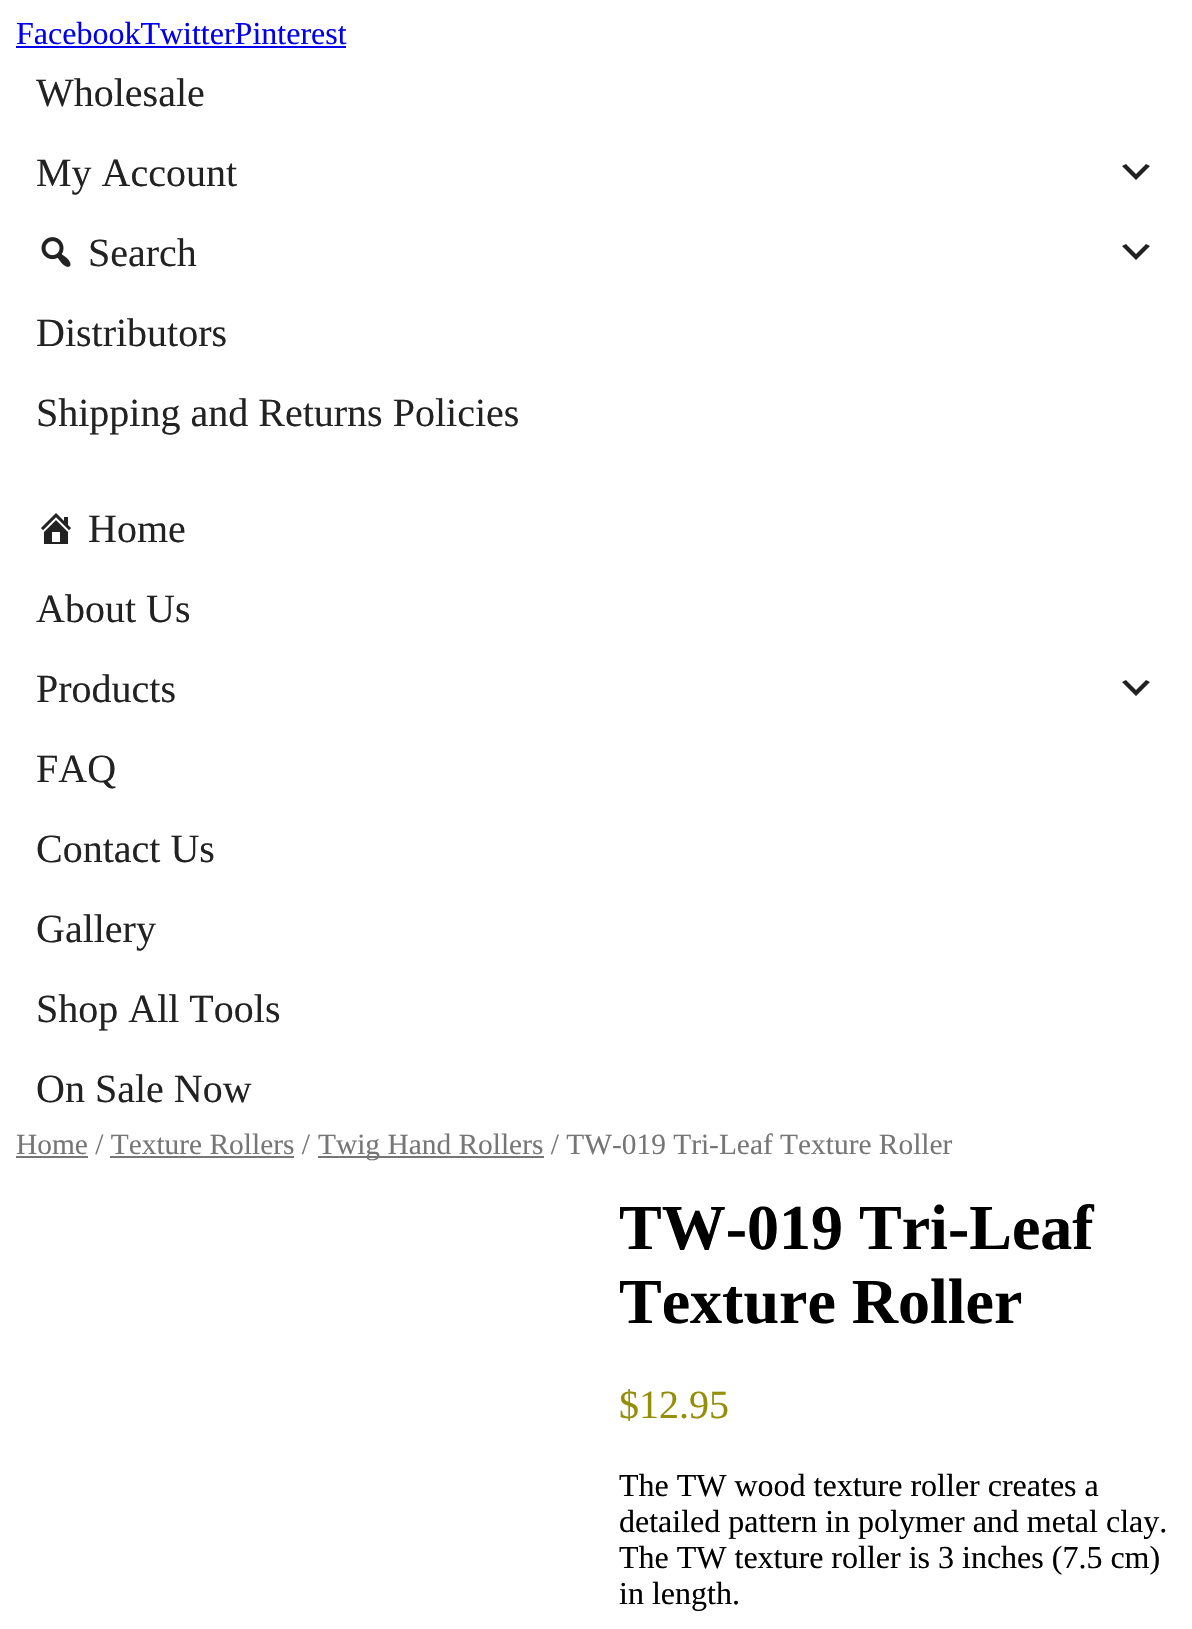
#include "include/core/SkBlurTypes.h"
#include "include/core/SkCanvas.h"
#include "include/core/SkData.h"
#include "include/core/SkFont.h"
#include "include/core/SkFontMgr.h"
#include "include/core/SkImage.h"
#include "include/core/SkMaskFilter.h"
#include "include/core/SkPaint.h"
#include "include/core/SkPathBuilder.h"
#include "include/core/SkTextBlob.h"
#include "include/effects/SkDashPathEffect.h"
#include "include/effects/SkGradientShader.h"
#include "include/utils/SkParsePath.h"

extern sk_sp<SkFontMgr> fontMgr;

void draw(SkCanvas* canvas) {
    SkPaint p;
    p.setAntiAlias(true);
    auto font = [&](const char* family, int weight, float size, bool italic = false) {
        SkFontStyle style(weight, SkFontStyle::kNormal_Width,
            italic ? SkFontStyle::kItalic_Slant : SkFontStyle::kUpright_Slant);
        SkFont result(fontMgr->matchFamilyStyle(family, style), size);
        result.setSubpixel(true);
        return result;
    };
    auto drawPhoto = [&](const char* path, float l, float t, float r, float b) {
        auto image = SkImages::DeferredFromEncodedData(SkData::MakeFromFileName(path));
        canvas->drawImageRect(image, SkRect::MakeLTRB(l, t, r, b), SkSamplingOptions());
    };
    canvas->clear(0xFFFFFFFF);
    auto font1 = font("Liberation Serif", 400, 32);
    p.setColor(0xFF0000EE);
    canvas->drawString("FacebookTwitterPinterest", 16, 44, font1, p);
    canvas->drawRect(SkRect::MakeLTRB(16, 46, 346, 48), p);
    auto font2 = font("Liberation Serif", 400, 40);
    p.setColor(0xFF222222);
    canvas->drawString("Wholesale", 36, 106, font2, p);
    canvas->drawString("My Account", 36, 186, font2, p);
    canvas->drawPath(SkPathBuilder().moveTo(1126, 164).lineTo(1136, 174).lineTo(1146, 164).lineTo(1150, 166).lineTo(1136, 180).lineTo(1122, 166).close().detach(), p);
    drawPhoto("media/1.png", 41, 237, 71, 267);
    canvas->drawString("Search", 88, 266, font2, p);
    canvas->drawPath(SkPathBuilder().moveTo(1126, 244).lineTo(1136, 254).lineTo(1146, 244).lineTo(1150, 246).lineTo(1136, 260).lineTo(1122, 246).close().detach(), p);
    canvas->drawString("Distributors", 36, 346, font2, p);
    canvas->drawString("Shipping and Returns Policies", 36, 426, font2, p);
    drawPhoto("media/2.png", 41, 513, 71, 544);
    {
        const struct { const char* s; float x, y; } items[] = {
            {"Home", 88, 542},
            {"About Us", 36, 622},
            {"Products", 36, 702},
        };
        for (auto [s, x, y] : items) {
            canvas->drawString(s, x, y, font2, p);
        }
    }
    canvas->drawPath(SkPathBuilder().moveTo(1126, 680).lineTo(1136, 690).lineTo(1146, 680).lineTo(1150, 682).lineTo(1136, 696).lineTo(1122, 682).close().detach(), p);
    {
        const struct { const char* s; float x, y; } items[] = {
            {"FAQ", 36, 782},
            {"Contact Us", 36, 862},
            {"Gallery", 36, 942},
            {"Shop All Tools", 36, 1022},
            {"On Sale Now", 36, 1102},
        };
        for (auto [s, x, y] : items) {
            canvas->drawString(s, x, y, font2, p);
        }
    }
    auto font3 = font("Liberation Serif", 400, 29.4f);
    p.setColor(0xFF767676);
    canvas->drawString("Home / Texture Rollers /", 16, 1154, font3, p);
    canvas->drawRect(SkRect::MakeLTRB(16, 1156, 88, 1158), p);
    canvas->drawRect(SkRect::MakeLTRB(318, 1156, 544, 1158), p);
    canvas->drawString("Twig Hand Rollers / TW-019 Tri-Leaf Texture Roller", 318, 1154, font3, p);
    canvas->drawRect(SkRect::MakeLTRB(110, 1156, 294, 1158), p);
    auto font4 = font("Liberation Serif", 700, 64);
    p.setColor(0xFF000000);
    canvas->drawString("TW-019 Tri-Leaf", 619, 1249, font4, p);
    canvas->drawString("Texture Roller", 619, 1323, font4, p);
    p.setColor(0xFF958E09);
    canvas->drawString("$12.95", 619, 1418, font2, p);
    p.setColor(0xFF000000);
    {
        const struct { const char* s; float x, y; } items[] = {
            {"The TW wood texture roller creates a", 619, 1496},
            {"detailed pattern in polymer and metal clay.", 619, 1532},
            {"The TW texture roller is 3 inches (7.5 cm)", 619, 1568},
            {"in length.", 619, 1604},
        };
        for (auto [s, x, y] : items) {
            canvas->drawString(s, x, y, font1, p);
        }
    }
}
